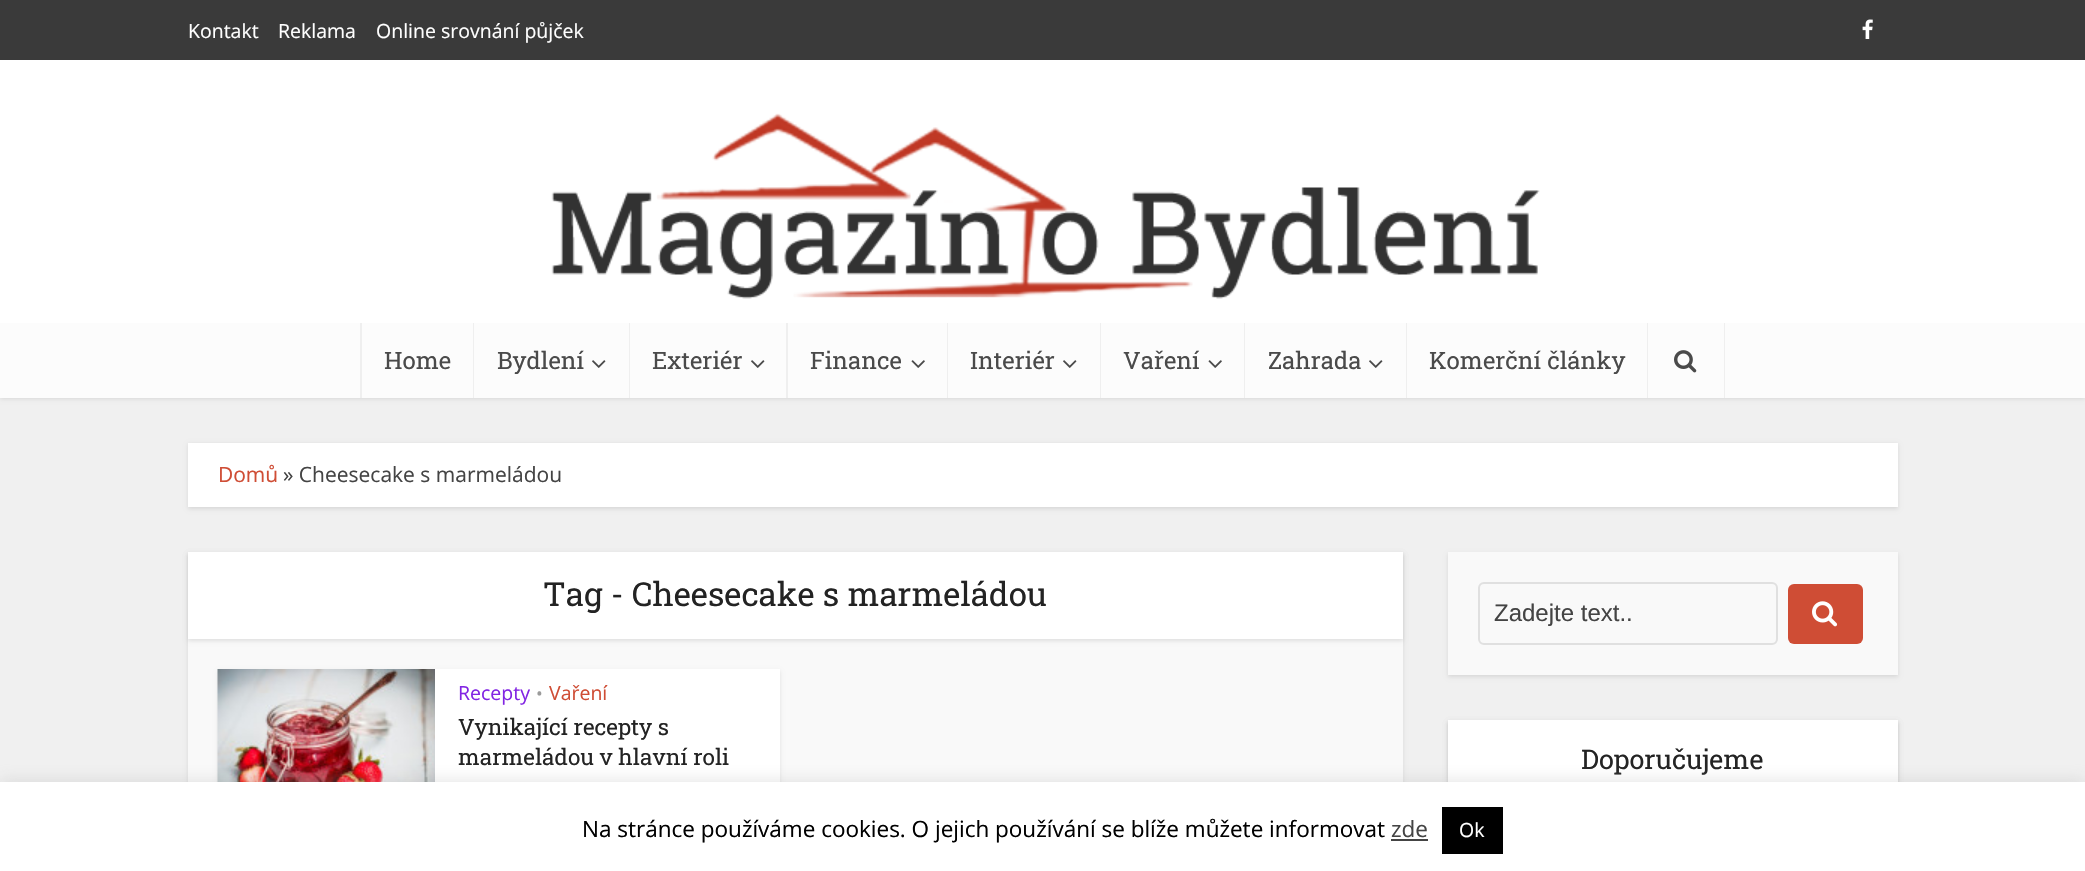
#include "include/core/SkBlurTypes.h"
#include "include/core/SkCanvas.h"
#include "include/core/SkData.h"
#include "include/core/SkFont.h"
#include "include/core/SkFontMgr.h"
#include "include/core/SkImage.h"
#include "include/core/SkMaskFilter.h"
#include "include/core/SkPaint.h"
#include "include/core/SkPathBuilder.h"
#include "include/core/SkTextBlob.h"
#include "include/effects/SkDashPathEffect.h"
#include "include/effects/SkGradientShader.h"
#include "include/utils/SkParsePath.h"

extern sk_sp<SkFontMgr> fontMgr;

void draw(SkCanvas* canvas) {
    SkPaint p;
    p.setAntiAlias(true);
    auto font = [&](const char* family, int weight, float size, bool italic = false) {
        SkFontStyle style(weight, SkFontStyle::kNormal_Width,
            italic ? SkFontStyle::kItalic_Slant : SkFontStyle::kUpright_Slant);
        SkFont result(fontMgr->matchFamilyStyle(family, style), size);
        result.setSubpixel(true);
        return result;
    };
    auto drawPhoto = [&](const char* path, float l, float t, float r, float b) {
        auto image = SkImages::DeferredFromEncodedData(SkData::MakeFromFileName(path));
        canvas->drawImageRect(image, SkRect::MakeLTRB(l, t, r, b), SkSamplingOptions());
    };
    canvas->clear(0xFFF0F0F0);
    p.setColor(0x1A000000);
    p.setMaskFilter(SkMaskFilter::MakeBlur(kNormal_SkBlurStyle, 2));
    canvas->drawRect(SkRect::MakeLTRB(0, 2, 2085, 399), p);
    p.setMaskFilter(nullptr);
    p.setColor(0xFFFFFFFF);
    canvas->drawRect(SkRect::MakeLTRB(0, 60, 2085, 323), p);
    p.setColor(0xFF3A3A3A);
    canvas->drawRect(SkRect::MakeLTRB(0, 0, 2085, 60), p);
    auto font1 = font("Open Sans", 400, 19.5f);
    p.setColor(0xFFFFFFFF);
    {
        const struct { const char* s; float x, y; } items[] = {
            {"Kontakt", 188, 38},
            {"Reklama", 278, 38},
            {"Online srovnání půjček", 376, 38},
        };
        for (auto [s, x, y] : items) {
            canvas->drawString(s, x, y, font1, p);
        }
    }
    drawPhoto("media/1.png", 1862, 19, 1873, 39);
    drawPhoto("media/2.png", 551, 113, 1540, 299);
    p.setColor(0xFFFCFCFC);
    canvas->drawRect(SkRect::MakeLTRB(0, 323, 2085, 398), p);
    p.setColor(0xFFEFEFEF);
    canvas->drawPath(SkPathBuilder().moveTo(360, 323).lineTo(360, 398).lineTo(473, 398).lineTo(362, 398).lineTo(362, 323).close().detach(), p);
    auto font2 = font("Roboto Slab", 400, 24);
    p.setColor(0xFF4A4A4A);
    canvas->drawString("Home", 384, 369, font2, p);
    p.setColor(0xFFEFEFEF);
    canvas->drawPath(SkPathBuilder().moveTo(473, 323).lineTo(473, 398).lineTo(629, 398).lineTo(474, 398).lineTo(474, 323).close().detach(), p);
    p.setColor(0xFF4A4A4A);
    canvas->drawString("Bydlení", 497, 369, font2, p);
    drawPhoto("media/3.png", 592, 360, 606, 368);
    p.setColor(0xFFEFEFEF);
    canvas->drawPath(SkPathBuilder().moveTo(629, 323).lineTo(629, 398).lineTo(786, 398).lineTo(630, 398).lineTo(630, 323).close().detach(), p);
    p.setColor(0xFF4A4A4A);
    canvas->drawString("Exteriér", 652, 369, font2, p);
    drawPhoto("media/3.png", 751, 360, 765, 368);
    p.setColor(0xFFEFEFEF);
    canvas->drawPath(SkPathBuilder().moveTo(786, 323).lineTo(786, 398).lineTo(947, 398).lineTo(788, 398).lineTo(788, 323).close().detach(), p);
    p.setColor(0xFF4A4A4A);
    canvas->drawString("Finance", 810, 369, font2, p);
    drawPhoto("media/4.png", 911, 360, 925, 368);
    p.setColor(0xFFEFEFEF);
    canvas->drawPath(SkPathBuilder().moveTo(947, 323).lineTo(947, 398).lineTo(1100, 398).lineTo(948, 398).lineTo(948, 323).close().detach(), p);
    p.setColor(0xFF4A4A4A);
    canvas->drawString("Interiér", 970, 369, font2, p);
    drawPhoto("media/3.png", 1063, 360, 1077, 368);
    p.setColor(0xFFEFEFEF);
    canvas->drawPath(SkPathBuilder().moveTo(1100, 323).lineTo(1100, 398).lineTo(1244, 398).lineTo(1101, 398).lineTo(1101, 323).close().detach(), p);
    p.setColor(0xFF4A4A4A);
    canvas->drawString("Vaření", 1123, 369, font2, p);
    drawPhoto("media/4.png", 1208, 360, 1222, 368);
    p.setColor(0xFFEFEFEF);
    canvas->drawPath(SkPathBuilder().moveTo(1244, 323).lineTo(1244, 398).lineTo(1406, 398).lineTo(1245, 398).lineTo(1245, 323).close().detach(), p);
    p.setColor(0xFF4A4A4A);
    canvas->drawString("Zahrada", 1268, 369, font2, p);
    drawPhoto("media/3.png", 1369, 360, 1383, 368);
    p.setColor(0xFFEFEFEF);
    canvas->drawPath(SkPathBuilder().moveTo(1406, 323).lineTo(1406, 398).lineTo(1647, 398).lineTo(1407, 398).lineTo(1407, 323).close().detach(), p);
    p.setColor(0xFF4A4A4A);
    canvas->drawString("Komerční články", 1429, 369, font2, p);
    p.setColor(0xFFEFEFEF);
    canvas->drawPath(SkPathBuilder().moveTo(1650, 398).lineTo(1725, 398).lineTo(1725, 323).lineTo(1724, 323).lineTo(1724, 398).close().detach(), p);
    canvas->drawPath(SkPathBuilder().moveTo(1647, 323).lineTo(1647, 398).lineTo(1722, 398).lineTo(1648, 398).lineTo(1648, 323).close().detach(), p);
    drawPhoto("media/5.png", 1674, 350, 1697, 373);
    p.setColor(0x1A000000);
    p.setMaskFilter(SkMaskFilter::MakeBlur(kNormal_SkBlurStyle, 2));
    canvas->drawRect(SkRect::MakeLTRB(188, 444, 1898, 509), p);
    p.setMaskFilter(nullptr);
    p.setColor(0xFFFFFFFF);
    canvas->drawRect(SkRect::MakeLTRB(188, 443, 1898, 507), p);
    auto font3 = font("Open Sans", 400, 21);
    p.setColor(0xFFCF4D35);
    canvas->drawString("Domů", 218, 482, font3, p);
    p.setColor(0xFF444444);
    canvas->drawString("» Cheesecake s marmeládou", 283, 482, font3, p);
    p.setColor(0x1A000000);
    p.setMaskFilter(SkMaskFilter::MakeBlur(kNormal_SkBlurStyle, 2));
    canvas->drawRect(SkRect::MakeLTRB(188, 554, 1403, 851), p);
    p.setMaskFilter(nullptr);
    p.setColor(0xFFF9F9F9);
    canvas->drawRect(SkRect::MakeLTRB(188, 639, 1403, 782), p);
    p.setColor(0x1A000000);
    p.setMaskFilter(SkMaskFilter::MakeBlur(kNormal_SkBlurStyle, 2));
    canvas->drawRect(SkRect::MakeLTRB(188, 554, 1403, 641), p);
    p.setMaskFilter(nullptr);
    p.setColor(0xFFFFFFFF);
    canvas->drawRect(SkRect::MakeLTRB(188, 552, 1403, 639), p);
    auto font4 = font("Roboto Slab", 400, 33);
    p.setColor(0xFF232323);
    canvas->drawString("Tag - Cheesecake s marmeládou", 543, 606, font4, p);
    p.setColor(0x1A000000);
    p.setMaskFilter(SkMaskFilter::MakeBlur(kNormal_SkBlurStyle, 2));
    canvas->drawRect(SkRect::MakeLTRB(218, 671, 780, 821), p);
    p.setMaskFilter(nullptr);
    p.setColor(0xFFFFFFFF);
    canvas->drawRect(SkRect::MakeLTRB(435, 669, 780, 782), p);
    drawPhoto("media/6.png", 217, 669, 435, 782);
    p.setColor(0xFF8224E3);
    canvas->drawString("Recepty", 458, 700, font1, p);
    auto font5 = font("Open Sans", 400, 18);
    p.setColor(0xFF9B9B9B);
    canvas->drawString("•", 536, 700, font5, p);
    p.setColor(0xFFCF4D35);
    canvas->drawString("Vaření", 549, 700, font1, p);
    auto font6 = font("Roboto Slab", 400, 22.5f);
    p.setColor(0xFF232323);
    canvas->drawString("Vynikající recepty s", 458, 735, font6, p);
    canvas->drawString("marmeládou v hlavní roli", 458, 765, font6, p);
    p.setColor(0x1A000000);
    p.setMaskFilter(SkMaskFilter::MakeBlur(kNormal_SkBlurStyle, 2));
    canvas->drawRect(SkRect::MakeLTRB(1448, 554, 1898, 677), p);
    p.setMaskFilter(nullptr);
    p.setColor(0xFFF9F9F9);
    canvas->drawRect(SkRect::MakeLTRB(1448, 552, 1898, 675), p);
    p.setStyle(SkPaint::kStroke_Style);
    p.setStrokeWidth(2);
    p.setColor(0xFFE0E0E0);
    canvas->drawRoundRect(SkRect::MakeLTRB(1479, 583, 1777, 644), 5, 5, p);
    auto font7 = font("Liberation Sans", 400, 24);
    p.setStyle(SkPaint::kFill_Style);
    p.setColor(0xFF444444);
    canvas->drawString("Zadejte text..", 1494, 621, font7, p);
    p.setColor(0xFFCF4D35);
    canvas->drawRoundRect(SkRect::MakeLTRB(1788, 584, 1863, 644), 6, 6, p);
    drawPhoto("media/7.png", 1812, 601, 1838, 627);
    p.setColor(0x1A000000);
    p.setMaskFilter(SkMaskFilter::MakeBlur(kNormal_SkBlurStyle, 2));
    canvas->drawRect(SkRect::MakeLTRB(1448, 722, 1898, 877), p);
    p.setMaskFilter(nullptr);
    p.setMaskFilter(SkMaskFilter::MakeBlur(kNormal_SkBlurStyle, 2));
    canvas->drawRect(SkRect::MakeLTRB(1448, 722, 1898, 800), p);
    p.setMaskFilter(nullptr);
    p.setColor(0xFFFFFFFF);
    canvas->drawRect(SkRect::MakeLTRB(1448, 720, 1898, 782), p);
    auto font8 = font("Roboto Slab", 400, 27);
    p.setColor(0xFF232323);
    canvas->drawString("Doporučujeme", 1581, 769, font8, p);
    p.setColor(0x4DACABAB);
    p.setMaskFilter(SkMaskFilter::MakeBlur(kNormal_SkBlurStyle, 7.5f));
    canvas->drawRect(SkRect::MakeLTRB(0, 780, 2085, 870), p);
    p.setMaskFilter(nullptr);
    p.setColor(0xFFFFFFFF);
    canvas->drawRect(SkRect::MakeLTRB(0, 782, 2085, 871), p);
    auto font9 = font("Open Sans", 400, 22.5f);
    p.setColor(0xFF000000);
    canvas->drawString("Na stránce používáme cookies. O jejich používání se blíže můžete informovat", 582, 837, font9, p);
    p.setColor(0xFF444444);
    canvas->drawString("zde", 1391, 837, font9, p);
    canvas->drawRect(SkRect::MakeLTRB(1391, 839, 1428, 841), p);
    p.setColor(0xFF000000);
    canvas->drawRect(SkRect::MakeLTRB(1442, 807, 1503, 854), p);
    p.setColor(0xFFFFFFFF);
    canvas->drawString("Ok", 1459, 837, font1, p);
}
